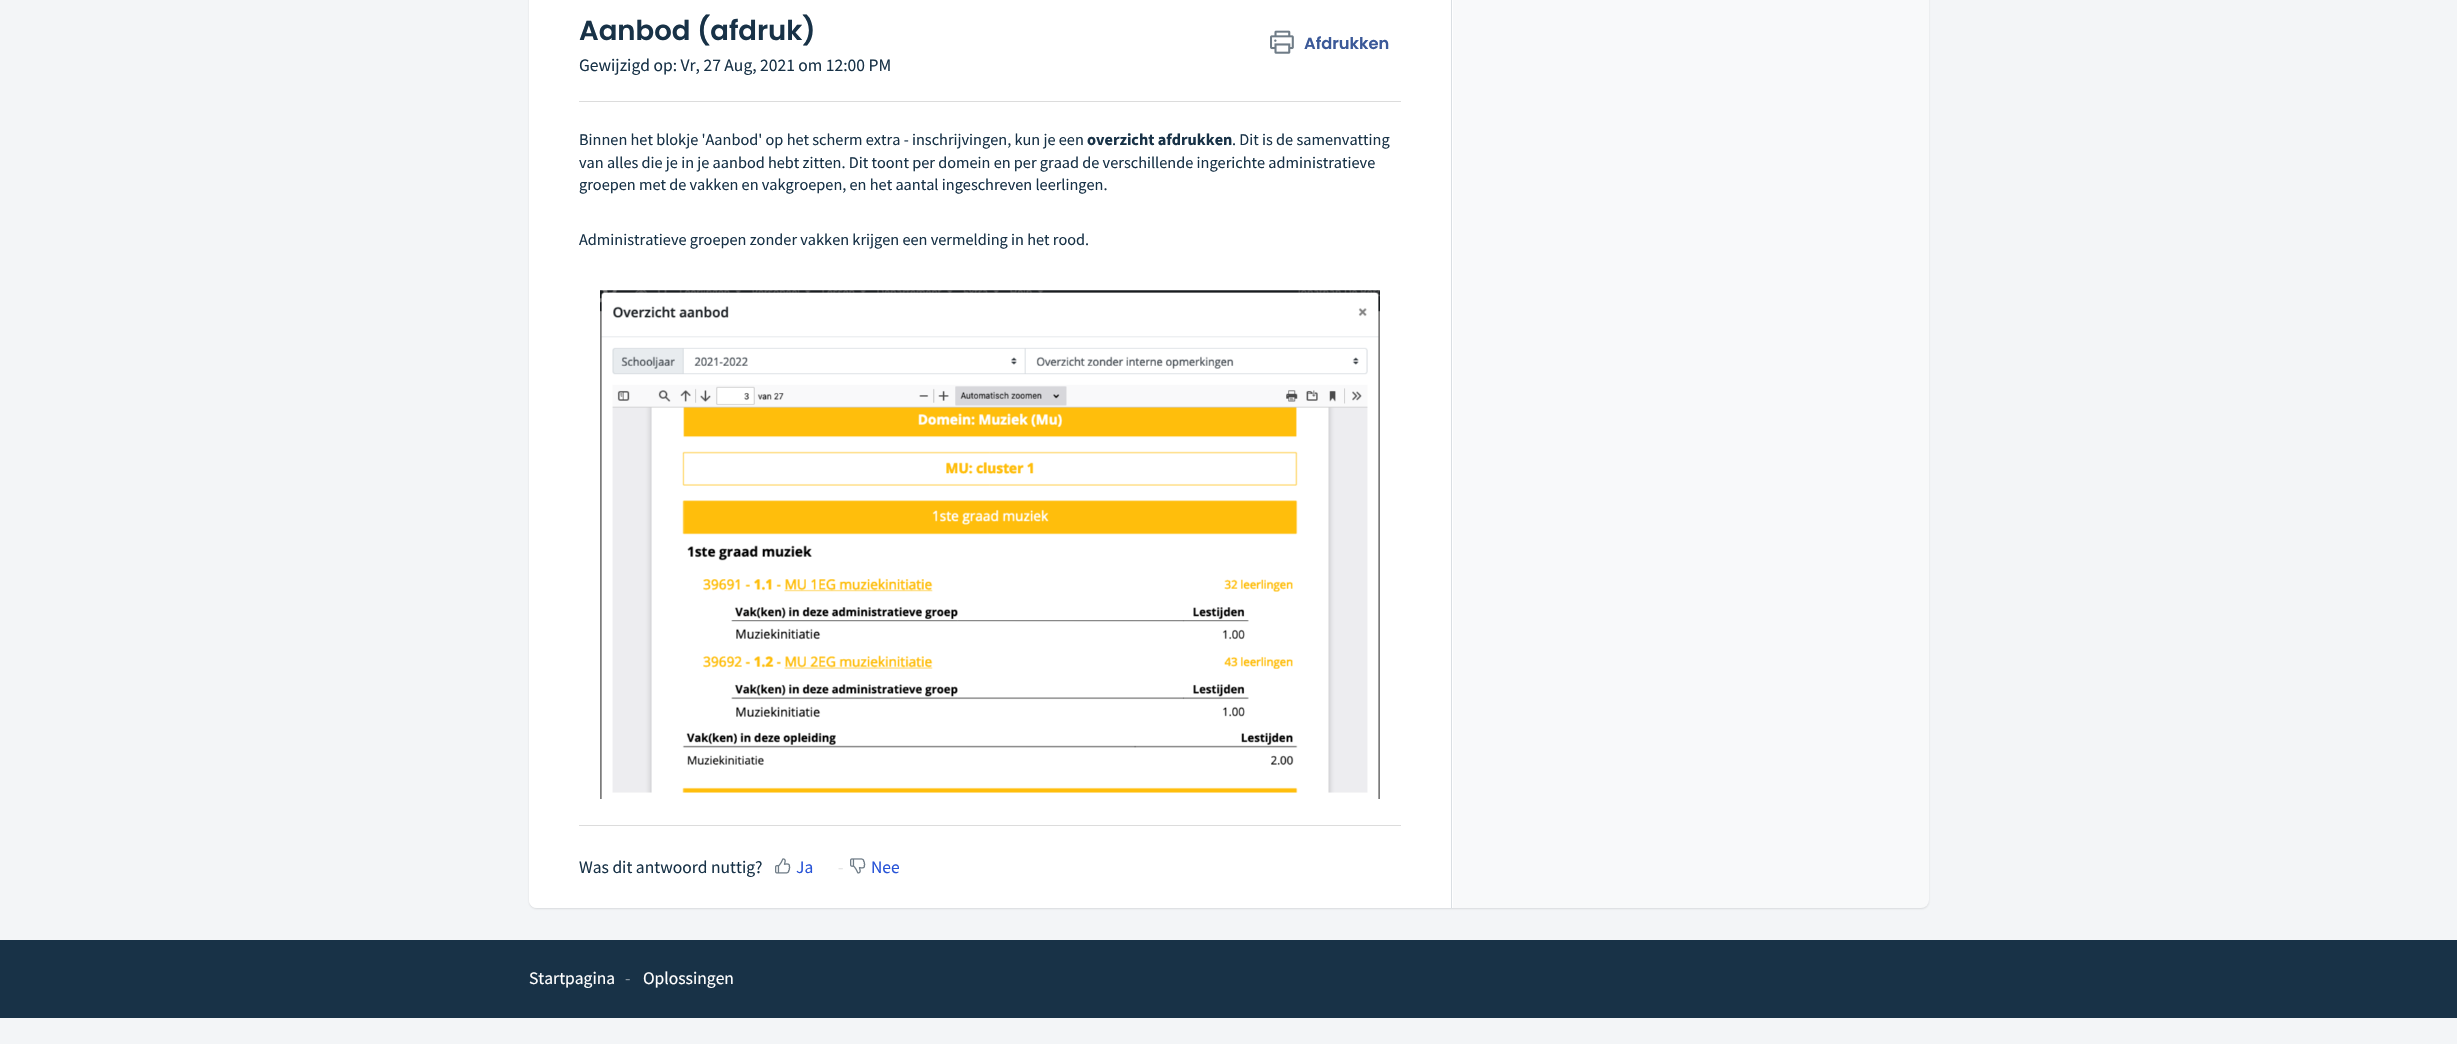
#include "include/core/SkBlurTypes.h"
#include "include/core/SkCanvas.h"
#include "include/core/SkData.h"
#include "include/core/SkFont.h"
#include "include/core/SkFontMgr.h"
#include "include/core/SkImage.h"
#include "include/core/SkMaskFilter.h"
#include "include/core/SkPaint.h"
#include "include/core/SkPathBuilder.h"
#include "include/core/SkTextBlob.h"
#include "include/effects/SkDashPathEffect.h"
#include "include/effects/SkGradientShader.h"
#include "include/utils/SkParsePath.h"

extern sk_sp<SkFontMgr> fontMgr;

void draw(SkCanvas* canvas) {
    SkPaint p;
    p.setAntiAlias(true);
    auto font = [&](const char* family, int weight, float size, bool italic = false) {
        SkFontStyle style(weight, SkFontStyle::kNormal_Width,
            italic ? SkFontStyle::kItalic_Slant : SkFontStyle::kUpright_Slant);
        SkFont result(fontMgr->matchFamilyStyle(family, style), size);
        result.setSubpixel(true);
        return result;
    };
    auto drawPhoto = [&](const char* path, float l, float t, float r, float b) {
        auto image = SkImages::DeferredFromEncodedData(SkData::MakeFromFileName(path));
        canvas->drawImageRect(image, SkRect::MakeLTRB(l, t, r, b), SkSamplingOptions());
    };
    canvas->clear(0xFFF3F5F7);
    p.setColor(0x263F3F44);
    p.setMaskFilter(SkMaskFilter::MakeBlur(kNormal_SkBlurStyle, 1));
    canvas->drawRoundRect(SkRect::MakeLTRB(529, -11, 1929, 909), 8, 8, p);
    p.setMaskFilter(nullptr);
    p.setColor(0xFFF8F9FA);
    canvas->drawRoundRect(SkRect::MakeLTRB(529, -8, 1929, 908), 8, 8, p);
    p.setColor(0xFFFFFFFF);
    canvas->drawPath(SkPathBuilder().moveTo(537, -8).lineTo(1453, -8).lineTo(1453, 908).lineTo(537, 908).cubicTo(532.5f, 908, 529, 904.5f, 529, 900).lineTo(529, 0).cubicTo(529, -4.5f, 532.5f, -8, 537, -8).close().detach(), p);
    p.setColor(0xFFDADFE3);
    canvas->drawRect(SkRect::MakeLTRB(1451, 0, 1452, 908), p);
    auto font1 = font("Poppins", 600, 27.5f);
    p.setColor(0xFF183247);
    canvas->drawString("Aanbod (afdruk)", 579, 40, font1, p);
    drawPhoto("media/1.png", 1270, 30, 1294, 54);
    auto font2 = font("Poppins", 600, 16.25f);
    p.setColor(0xFF3B5998);
    canvas->drawString("Afdrukken", 1304, 49, font2, p);
    auto font3 = font("Source Sans Pro", 400, 17.5f);
    p.setColor(0xFF183247);
    canvas->drawString("Gewijzigd op: Vr, 27 Aug, 2021 om 12:00 PM", 579, 71, font3, p);
    p.setColor(0xFFDCDCDC);
    canvas->drawRect(SkRect::MakeLTRB(579, 101, 1401, 102), p);
    auto font4 = font("Source Sans Pro", 400, 16.25f);
    p.setColor(0xFF183247);
    canvas->drawString("Binnen het blokje 'Aanbod' op het scherm extra - inschrijvingen, kun je een", 579, 145, font4, p);
    auto font5 = font("Source Sans Pro", 700, 16.25f);
    canvas->drawString("overzicht afdrukken", 1087, 145, font5, p);
    {
        const struct { const char* s; float x, y; } items[] = {
            {". Dit is de samenvatting", 1232, 145},
            {"van alles die je in je aanbod hebt zitten. Dit toont per domein en per graad de verschillende ingerichte administratieve", 579, 168},
            {"groepen met de vakken en vakgroepen, en het aantal ingeschreven leerlingen.", 579, 190},
            {"Administratieve groepen zonder vakken krijgen een vermelding in het rood.", 579, 245},
        };
        for (auto [s, x, y] : items) {
            canvas->drawString(s, x, y, font4, p);
        }
    }
    drawPhoto("media/2.png", 600, 290, 1380, 799);
    p.setColor(0xFFDCDCDC);
    canvas->drawRect(SkRect::MakeLTRB(579, 825, 1401, 826), p);
    p.setColor(0xFF183247);
    canvas->drawString("Was dit antwoord nuttig?", 579, 873, font3, p);
    drawPhoto("media/3.png", 775, 858, 791, 874);
    p.setColor(0xFF2753D7);
    canvas->drawString("Ja", 796, 873, font3, p);
    p.setColor(0xFFE5E5E5);
    canvas->drawString("-", 838, 873, font3, p);
    drawPhoto("media/4.png", 850, 858, 866, 874);
    p.setColor(0xFF2753D7);
    canvas->drawString("Nee", 871, 873, font3, p);
    p.setColor(0xFF183247);
    canvas->drawRect(SkRect::MakeLTRB(0, 940, 2457, 1018), p);
    p.setColor(0xFFFFFFFF);
    canvas->drawString("Startpagina", 529, 984, font3, p);
    p.setColor(0xFF8C99A3);
    canvas->drawString("-", 625, 984, font3, p);
    p.setColor(0xFFFFFFFF);
    canvas->drawString("Oplossingen", 643, 984, font3, p);
}
